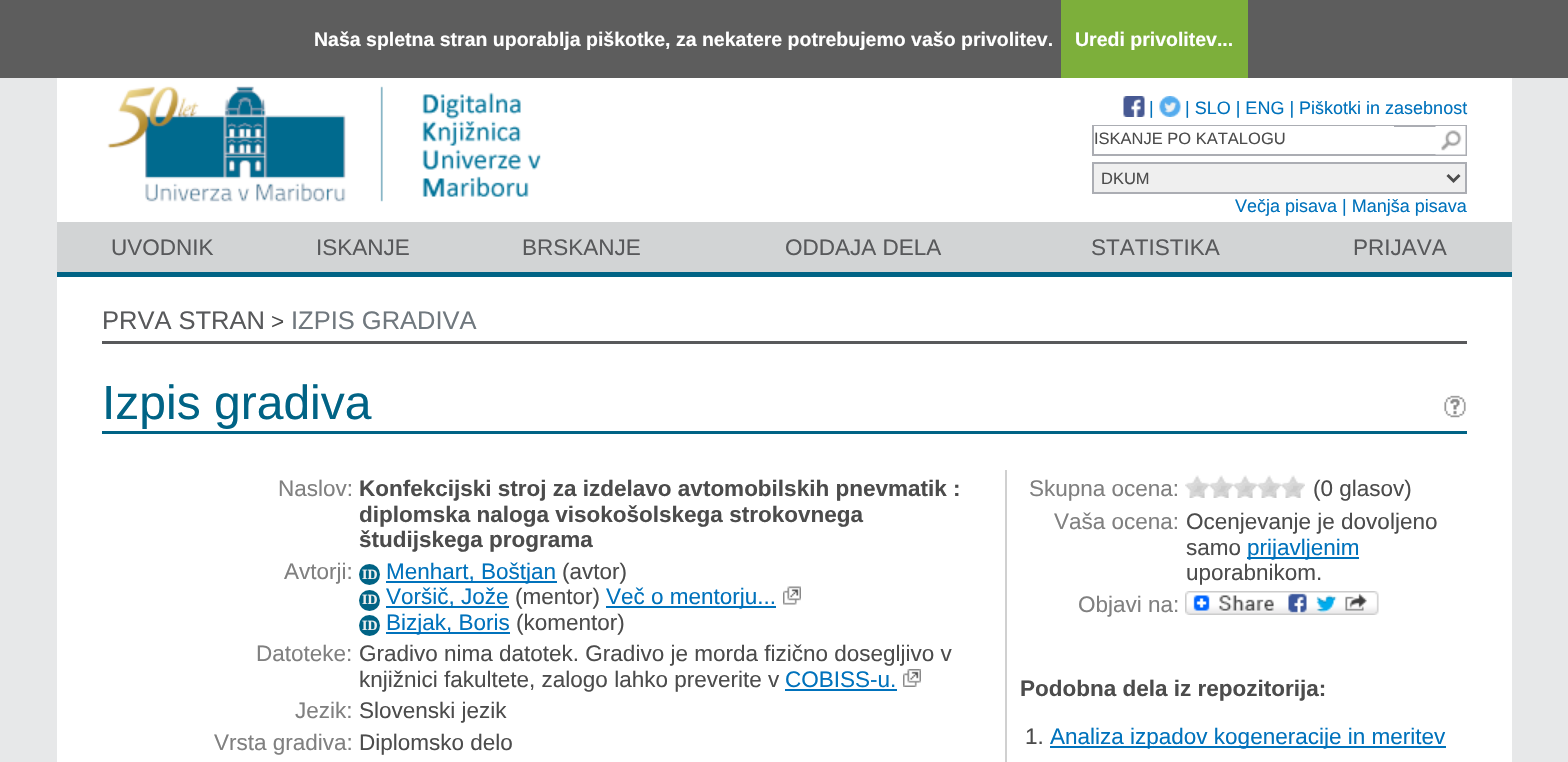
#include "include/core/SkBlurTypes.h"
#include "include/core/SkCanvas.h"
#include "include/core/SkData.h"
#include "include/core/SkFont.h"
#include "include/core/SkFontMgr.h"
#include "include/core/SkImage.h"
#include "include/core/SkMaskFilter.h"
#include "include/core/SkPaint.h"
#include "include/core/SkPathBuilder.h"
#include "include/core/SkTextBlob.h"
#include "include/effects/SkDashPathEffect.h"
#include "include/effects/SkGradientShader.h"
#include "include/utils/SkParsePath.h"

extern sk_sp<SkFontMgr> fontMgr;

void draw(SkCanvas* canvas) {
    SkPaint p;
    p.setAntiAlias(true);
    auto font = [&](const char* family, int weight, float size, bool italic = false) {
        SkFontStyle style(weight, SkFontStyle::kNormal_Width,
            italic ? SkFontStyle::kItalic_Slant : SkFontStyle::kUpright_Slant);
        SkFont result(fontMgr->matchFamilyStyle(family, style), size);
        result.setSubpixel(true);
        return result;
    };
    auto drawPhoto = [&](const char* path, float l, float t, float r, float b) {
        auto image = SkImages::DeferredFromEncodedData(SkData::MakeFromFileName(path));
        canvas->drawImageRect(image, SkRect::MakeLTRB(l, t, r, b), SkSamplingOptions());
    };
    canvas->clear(0xFFE7E8E9);
    p.setColor(0xFF5D5D5D);
    canvas->drawRect(SkRect::MakeLTRB(0, 0, 1568, 78), p);
    auto font1 = font("Liberation Sans", 700, 19.5f);
    p.setColor(0xFFFFFFFF);
    canvas->drawString("Naša spletna stran uporablja piškotke, za nekatere potrebujemo vašo privolitev.", 314, 46, font1, p);
    p.setColor(0xFF7DAF3B);
    canvas->drawRect(SkRect::MakeLTRB(1061, 0, 1248, 78), p);
    p.setColor(0xFFFFFFFF);
    canvas->drawString("Uredi privolitev...", 1075, 46, font1, p);
    canvas->drawRect(SkRect::MakeLTRB(57, 78, 1512, 762), p);
    drawPhoto("media/1.png", 107, 86, 541, 202);
    drawPhoto("media/2.png", 1123, 96, 1145, 117);
    auto font2 = font("Liberation Sans", 400, 18);
    p.setColor(0xFF0072BC);
    canvas->drawString("|", 1149, 114, font2, p);
    drawPhoto("media/3.png", 1159, 96, 1181, 117);
    canvas->drawString("| SLO | ENG | Piškotki in zasebnost", 1185, 114, font2, p);
    p.setStyle(SkPaint::kStroke_Style);
    p.setStrokeWidth(2);
    p.setColor(0xFFABADB3);
    canvas->drawRect(SkRect::MakeLTRB(1093, 126, 1466, 155), p);
    p.setStyle(SkPaint::kFill_Style);
    p.setColor(0xFFFFFFFF);
    canvas->drawRect(SkRect::MakeLTRB(1094, 126, 1394, 127), p);
    auto font3 = font("Liberation Sans", 400, 16.5f);
    p.setColor(0xFF4C4C4C);
    canvas->drawString("ISKANJE PO KATALOGU", 1094, 144, font3, p);
    drawPhoto("media/4.png", 1435, 126, 1466, 155);
    p.setColor(0xFFEFEFEF);
    canvas->drawRect(SkRect::MakeLTRB(1093, 163, 1466, 193), p);
    p.setStyle(SkPaint::kStroke_Style);
    p.setColor(0xFFABADB3);
    canvas->drawRect(SkRect::MakeLTRB(1093, 163, 1466, 193), p);
    p.setStrokeWidth(3);
    p.setColor(0xFF4C4C4C);
    canvas->drawPath(SkPathBuilder().moveTo(1447.5f, 175).lineTo(1453.5f, 181).lineTo(1459.5f, 175).detach(), p);
    p.setStyle(SkPaint::kFill_Style);
    canvas->drawString("DKUM", 1101, 184, font3, p);
    p.setColor(0xFF0072BC);
    canvas->drawString("Večja pisava | Manjša pisava", 1235, 212, font2, p);
    p.setColor(0xFFD2D4D5);
    canvas->drawRect(SkRect::MakeLTRB(57, 222, 1512, 272), p);
    p.setColor(0xFF006385);
    canvas->drawRect(SkRect::MakeLTRB(57, 272, 1512, 277), p);
    auto font4 = font("Liberation Sans", 400, 22.5f);
    p.setColor(0xFF58595B);
    {
        const struct { const char* s; float x, y; } items[] = {
            {"UVODNIK", 111, 255},
            {"ISKANJE", 316, 255},
            {"BRSKANJE", 522, 255},
            {"ODDAJA DELA", 785, 255},
            {"STATISTIKA", 1091, 255},
            {"PRIJAVA", 1353, 255},
        };
        for (auto [s, x, y] : items) {
            canvas->drawString(s, x, y, font4, p);
        }
    }
    canvas->drawRect(SkRect::MakeLTRB(102, 341, 1467, 344), p);
    auto font5 = font("Liberation Sans", 400, 25.5f);
    canvas->drawString("PRVA STRAN", 102, 329, font5, p);
    p.setColor(0xFF4C4C4C);
    canvas->drawString(">", 271, 329, font4, p);
    p.setColor(0xFF70787E);
    canvas->drawString("IZPIS GRADIVA", 291, 329, font5, p);
    p.setColor(0xFF006385);
    canvas->drawRect(SkRect::MakeLTRB(102, 431, 1467, 434), p);
    auto font6 = font("Liberation Sans", 400, 48);
    canvas->drawString("Izpis gradiva", 102, 419, font6, p);
    drawPhoto("media/5.png", 1444, 395, 1466, 418);
    p.setColor(0xFF808080);
    canvas->drawString("Naslov:", 278, 496, font4, p);
    auto font7 = font("Liberation Sans", 700, 22.5f);
    p.setColor(0xFF4C4C4C);
    {
        const struct { const char* s; float x, y; } items[] = {
            {"Konfekcijski stroj za izdelavo avtomobilskih pnevmatik :", 359, 496},
            {"diplomska naloga visokošolskega strokovnega", 359, 522},
            {"študijskega programa", 359, 547},
        };
        for (auto [s, x, y] : items) {
            canvas->drawString(s, x, y, font7, p);
        }
    }
    p.setColor(0xFF808080);
    canvas->drawString("Avtorji:", 284, 579, font4, p);
    p.setColor(0xFF006385);
    canvas->drawCircle(369.5f, 574.5f, 10.5f, p);
    auto font8 = font("Liberation Serif", 700, 14);
    p.setColor(0xFFEEEEEE);
    canvas->drawString("ID", 362, 579, font8, p);
    p.setColor(0xFF0072BC);
    canvas->drawRect(SkRect::MakeLTRB(386, 581, 557, 583), p);
    canvas->drawString("Menhart, Boštjan", 386, 579, font4, p);
    p.setColor(0xFF4C4C4C);
    canvas->drawString("(avtor)", 562, 579, font4, p);
    p.setColor(0xFF006385);
    canvas->drawCircle(369.5f, 600.5f, 10.5f, p);
    p.setColor(0xFFEEEEEE);
    canvas->drawString("ID", 362, 604, font8, p);
    p.setColor(0xFF0072BC);
    canvas->drawRect(SkRect::MakeLTRB(386, 606, 509, 608), p);
    canvas->drawString("Voršič, Jože", 386, 604, font4, p);
    p.setColor(0xFF4C4C4C);
    canvas->drawString("(mentor)", 515, 604, font4, p);
    p.setColor(0xFF0072BC);
    canvas->drawRect(SkRect::MakeLTRB(606, 606, 776, 608), p);
    canvas->drawString("Več o mentorju...", 606, 604, font4, p);
    drawPhoto("media/6.png", 783, 586, 801, 605);
    p.setColor(0xFF006385);
    canvas->drawCircle(369.5f, 625.5f, 10.5f, p);
    p.setColor(0xFFEEEEEE);
    canvas->drawString("ID", 362, 630, font8, p);
    p.setColor(0xFF0072BC);
    canvas->drawRect(SkRect::MakeLTRB(386, 632, 510, 634), p);
    canvas->drawString("Bizjak, Boris", 386, 630, font4, p);
    p.setColor(0xFF4C4C4C);
    canvas->drawString("(komentor)", 516, 630, font4, p);
    p.setColor(0xFF808080);
    canvas->drawString("Datoteke:", 256, 661, font4, p);
    p.setColor(0xFF4C4C4C);
    canvas->drawString("Gradivo nima datotek. Gradivo je morda fizično dosegljivo v", 359, 661, font4, p);
    canvas->drawString("knjižnici fakultete, zalogo lahko preverite v", 359, 687, font4, p);
    p.setColor(0xFF0072BC);
    canvas->drawString("COBISS-u.", 785, 687, font4, p);
    canvas->drawRect(SkRect::MakeLTRB(785, 689, 897, 691), p);
    drawPhoto("media/7.png", 903, 669, 921, 687);
    p.setColor(0xFF808080);
    canvas->drawString("Jezik:", 295, 718, font4, p);
    p.setColor(0xFF4C4C4C);
    canvas->drawString("Slovenski jezik", 359, 718, font4, p);
    p.setColor(0xFF808080);
    canvas->drawString("Vrsta gradiva:", 214, 750, font4, p);
    p.setColor(0xFF4C4C4C);
    canvas->drawString("Diplomsko delo", 359, 750, font4, p);
    p.setColor(0xFFD0D0D0);
    canvas->drawRect(SkRect::MakeLTRB(1005, 470, 1007, 762), p);
    p.setColor(0xFF808080);
    canvas->drawString("Skupna ocena:", 1029, 496, font4, p);
    drawPhoto("media/8.png", 1185, 475, 1197, 498);
    drawPhoto("media/9.png", 1191, 497, 1193, 498);
    drawPhoto("media/10.png", 1197, 475, 1209, 498);
    drawPhoto("media/11.png", 1202, 497, 1204, 498);
    drawPhoto("media/8.png", 1209, 475, 1221, 498);
    drawPhoto("media/9.png", 1215, 497, 1217, 498);
    drawPhoto("media/10.png", 1221, 475, 1233, 498);
    drawPhoto("media/11.png", 1226, 497, 1228, 498);
    drawPhoto("media/8.png", 1233, 475, 1245, 498);
    drawPhoto("media/9.png", 1239, 497, 1241, 498);
    drawPhoto("media/10.png", 1245, 475, 1257, 498);
    drawPhoto("media/11.png", 1250, 497, 1252, 498);
    drawPhoto("media/8.png", 1257, 475, 1269, 498);
    drawPhoto("media/9.png", 1263, 497, 1265, 498);
    drawPhoto("media/12.png", 1269, 475, 1281, 498);
    drawPhoto("media/13.png", 1273, 497, 1276, 498);
    drawPhoto("media/14.png", 1281, 475, 1293, 498);
    drawPhoto("media/15.png", 1287, 497, 1289, 498);
    drawPhoto("media/10.png", 1293, 475, 1305, 498);
    drawPhoto("media/11.png", 1298, 497, 1300, 498);
    p.setColor(0xFF4C4C4C);
    canvas->drawString("(0 glasov)", 1313, 496, font4, p);
    p.setColor(0xFF808080);
    canvas->drawString("Vaša ocena:", 1054, 529, font4, p);
    p.setColor(0xFF4C4C4C);
    canvas->drawString("Ocenjevanje je dovoljeno", 1186, 529, font4, p);
    canvas->drawString("samo", 1186, 555, font4, p);
    p.setColor(0xFF0072BC);
    canvas->drawRect(SkRect::MakeLTRB(1247, 557, 1359, 559), p);
    canvas->drawString("prijavljenim", 1247, 555, font4, p);
    p.setColor(0xFF4C4C4C);
    canvas->drawString("uporabnikom.", 1186, 580, font4, p);
    p.setColor(0xFF808080);
    canvas->drawString("Objavi na:", 1078, 612, font4, p);
    drawPhoto("media/16.png", 1185, 591, 1379, 615);
    p.setColor(0xFF4C4C4C);
    canvas->drawString("Podobna dela iz repozitorija:", 1020, 696, font7, p);
    canvas->drawString("1.", 1025, 744, font4, p);
    p.setColor(0xFF0072BC);
    canvas->drawRect(SkRect::MakeLTRB(1050, 746, 1446, 748), p);
    canvas->drawString("Analiza izpadov kogeneracije in meritev", 1050, 744, font4, p);
}
